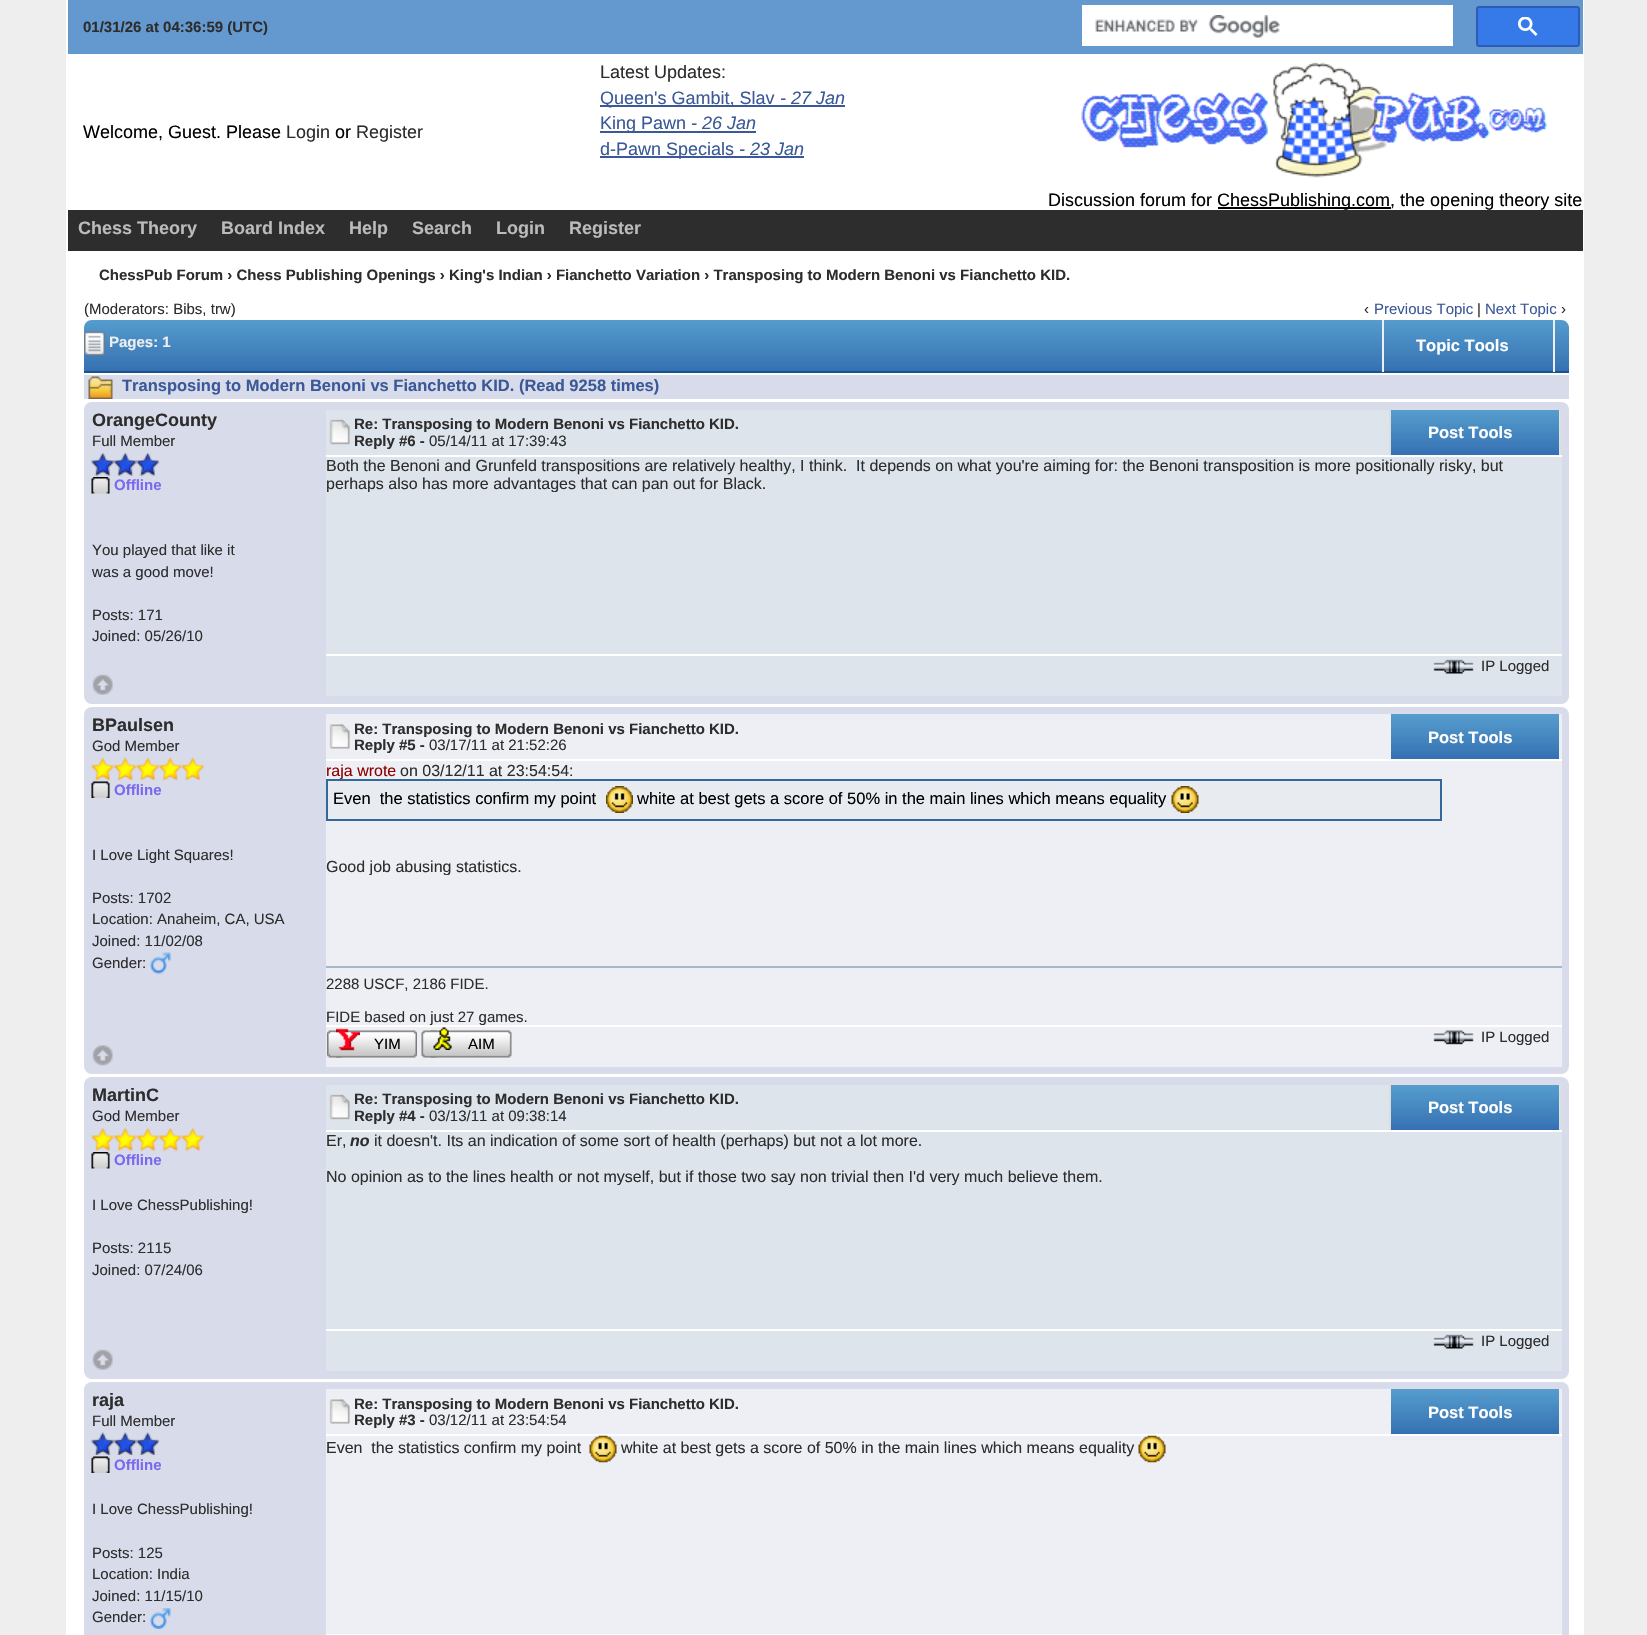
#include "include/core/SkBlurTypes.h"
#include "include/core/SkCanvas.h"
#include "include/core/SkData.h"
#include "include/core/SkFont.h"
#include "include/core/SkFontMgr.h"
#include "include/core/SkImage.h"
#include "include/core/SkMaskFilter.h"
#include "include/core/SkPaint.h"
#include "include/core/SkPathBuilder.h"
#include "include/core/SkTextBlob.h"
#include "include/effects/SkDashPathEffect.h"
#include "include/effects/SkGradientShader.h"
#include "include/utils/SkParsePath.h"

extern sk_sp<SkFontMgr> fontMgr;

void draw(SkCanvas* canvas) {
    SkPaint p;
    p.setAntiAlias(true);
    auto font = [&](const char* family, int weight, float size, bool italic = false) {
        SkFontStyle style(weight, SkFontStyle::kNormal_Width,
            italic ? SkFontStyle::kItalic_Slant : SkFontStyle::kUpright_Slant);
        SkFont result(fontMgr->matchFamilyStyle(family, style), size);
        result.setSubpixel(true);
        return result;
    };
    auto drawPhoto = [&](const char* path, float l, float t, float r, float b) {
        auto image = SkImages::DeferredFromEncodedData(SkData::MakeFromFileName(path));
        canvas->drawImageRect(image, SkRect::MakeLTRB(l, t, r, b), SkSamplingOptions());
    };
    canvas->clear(0xFFEEEEEE);
    p.setColor(0xFFFFFFFF);
    canvas->drawRect(SkRect::MakeLTRB(66, 0, 1584, 1635), p);
    p.setColor(0xFF6499D0);
    canvas->drawRect(SkRect::MakeLTRB(68, 0, 1583, 54), p);
    auto font1 = font("Liberation Sans", 700, 15);
    p.setColor(0xFF2D2D2D);
    canvas->drawString("01/31/26 at 04:36:59 (UTC)", 83, 32, font1, p);
    p.setColor(0xFFFFFFFF);
    canvas->drawRect(SkRect::MakeLTRB(1082, 5, 1453, 46), p);
    drawPhoto("media/1.png", 1095, 15, 1280, 38);
    p.setColor(0xFF357AE8);
    canvas->drawRoundRect(SkRect::MakeLTRB(1477, 7, 1579, 46), 2, 2, p);
    p.setStyle(SkPaint::kStroke_Style);
    p.setStrokeWidth(2);
    p.setColor(0xFF2F5BB7);
    canvas->drawRoundRect(SkRect::MakeLTRB(1477, 7, 1579, 46), 2, 2, p);
    drawPhoto("media/2.png", 1518, 17, 1538, 36);
    auto font2 = font("Liberation Sans", 400, 18);
    p.setStyle(SkPaint::kFill_Style);
    p.setColor(0xFF2D2D2D);
    canvas->drawString("Latest Updates:", 600, 78, font2, p);
    p.setColor(0xFF3B5998);
    canvas->drawRect(SkRect::MakeLTRB(600, 105, 845, 107), p);
    canvas->drawString("Queen's Gambit, Slav", 600, 104, font2, p);
    auto font3 = font("Liberation Sans", 400, 18, true);
    canvas->drawString("- 27 Jan", 780, 104, font3, p);
    canvas->drawRect(SkRect::MakeLTRB(600, 131, 756, 133), p);
    canvas->drawString("King Pawn", 600, 129, font2, p);
    canvas->drawString("- 26 Jan", 691, 129, font3, p);
    canvas->drawRect(SkRect::MakeLTRB(600, 156, 804, 158), p);
    canvas->drawString("d-Pawn Specials", 600, 155, font2, p);
    canvas->drawString("- 23 Jan", 739, 155, font3, p);
    p.setColor(0xFF000000);
    canvas->drawString("Welcome, Guest. Please", 83, 138, font2, p);
    p.setColor(0xFF2D2D2D);
    canvas->drawString("Login", 286, 138, font2, p);
    p.setColor(0xFF000000);
    canvas->drawString("or", 335, 138, font2, p);
    p.setColor(0xFF2D2D2D);
    canvas->drawString("Register", 356, 138, font2, p);
    drawPhoto("media/3.png", 1081, 62, 1547, 178);
    p.setColor(0xFF000000);
    canvas->drawString("Discussion forum for", 1048, 206, font2, p);
    canvas->drawRect(SkRect::MakeLTRB(1218, 207, 1391, 209), p);
    canvas->drawString("ChessPublishing.com, the opening theory site", 1217, 206, font2, p);
    p.setColor(0xFF2D2D2D);
    canvas->drawRect(SkRect::MakeLTRB(68, 210, 1583, 251), p);
    auto font4 = font("Liberation Sans", 700, 18);
    p.setColor(0xFFBBBBBB);
    {
        const struct { const char* s; float x, y; } items[] = {
            {"Chess Theory", 78, 234},
            {"Board Index", 221, 234},
            {"Help", 349, 234},
            {"Search", 412, 234},
            {"Login", 496, 234},
            {"Register", 569, 234},
        };
        for (auto [s, x, y] : items) {
            canvas->drawString(s, x, y, font4, p);
        }
    }
    p.setColor(0xFF2D2D2D);
    canvas->drawString("ChessPub Forum › Chess Publishing Openings › King's Indian › Fianchetto Variation › Transposing to Modern Benoni vs Fianchetto KID.", 99, 280, font1, p);
    auto font5 = font("Liberation Sans", 400, 15);
    canvas->drawString("(Moderators: Bibs, trw)", 84, 314, font5, p);
    canvas->drawString("‹", 1364, 314, font5, p);
    p.setColor(0xFF3B5998);
    canvas->drawString("Previous Topic", 1374, 314, font5, p);
    p.setColor(0xFF2D2D2D);
    canvas->drawString("|", 1477, 314, font5, p);
    p.setColor(0xFF3B5998);
    canvas->drawString("Next Topic", 1485, 314, font5, p);
    p.setColor(0xFF2D2D2D);
    canvas->drawString("›", 1561, 314, font5, p);
    {
        const SkColor colors[] = {0xFF569DCE, 0xFF3571B2};
        const float stops[] = {0, 1};
        const SkPoint ends[] = {{827, 319}, {827, 371}};
        p.setShader(SkGradientShader::MakeLinear(ends, colors, stops, 2, SkTileMode::kClamp));
        p.setAlpha(255);
    }
    canvas->drawPath(SkPathBuilder().moveTo(92, 320).lineTo(1561, 320).cubicTo(1565.5f, 320, 1569, 323.5f, 1569, 328).lineTo(1569, 371).lineTo(84, 371).lineTo(84, 328).cubicTo(84, 323.5f, 87.5f, 320, 92, 320).close().detach(), p);
    p.setShader(nullptr);
    p.setColor(0xFF195392);
    canvas->drawRect(SkRect::MakeLTRB(84, 371, 1569, 373), p);
    drawPhoto("media/4.png", 84, 331, 105, 356);
    p.setColor(0xFFEEEEEE);
    canvas->drawString("Pages: 1", 109, 347, font1, p);
    p.setColor(0xFFEDEFF4);
    canvas->drawRect(SkRect::MakeLTRB(1553, 320, 1555, 372), p);
    canvas->drawRect(SkRect::MakeLTRB(1382, 320, 1384, 372), p);
    auto font6 = font("Liberation Sans", 700, 16.5f);
    p.setColor(0xFFFFFFFF);
    canvas->drawString("Topic Tools", 1416, 351, font6, p);
    p.setColor(0xFFD7DBEA);
    canvas->drawRect(SkRect::MakeLTRB(84, 375, 1569, 399), p);
    drawPhoto("media/5.png", 88, 376, 113, 399);
    p.setColor(0xFF3B5998);
    canvas->drawString("Transposing to Modern Benoni vs Fianchetto KID. (Read 9258 times)", 122, 391, font6, p);
    p.setColor(0xFFD7DBEA);
    canvas->drawRoundRect(SkRect::MakeLTRB(84, 402, 1569, 704), 8, 8, p);
    p.setColor(0xFFDEE4EC);
    canvas->drawRect(SkRect::MakeLTRB(326, 410, 1560, 455), p);
    p.setColor(0xFF2D2D2D);
    canvas->drawString("OrangeCounty", 92, 426, font4, p);
    canvas->drawString("Full Member", 92, 446, font5, p);
    drawPhoto("media/6.png", 91, 453, 114, 476);
    drawPhoto("media/7.png", 114, 453, 137, 476);
    drawPhoto("media/8.png", 136, 453, 159, 476);
    drawPhoto("media/9.png", 91, 477, 110, 494);
    p.setColor(0xFF7B68EE);
    canvas->drawString("Offline", 114, 490, font1, p);
    p.setColor(0xFF2D2D2D);
    {
        const struct { const char* s; float x, y; } items[] = {
            {"You played that like it", 92, 555},
            {"was a good move!", 92, 577},
            {"Posts: 171", 92, 620},
            {"Joined: 05/26/10", 92, 641},
        };
        for (auto [s, x, y] : items) {
            canvas->drawString(s, x, y, font5, p);
        }
    }
    {
        const struct { float l, t, r, b; SkColor color; } items[] = {
            {1560, 410, 1562, 456, 0xFFDDDDDD},
            {1389, 455, 1562, 457, 0xFFFFFFFF},
            {1389, 410, 1391, 456, 0xFFDDDDDD},
            {326, 455, 1391, 457, 0xFFFFFFFF},
        };
        for (auto [l, t, r, b, color] : items) {
            p.setColor(color);
            canvas->drawRect(SkRect::MakeLTRB(l, t, r, b), p);
        }
    }
    drawPhoto("media/10.png", 329, 419, 350, 445);
    p.setColor(0xFF2D2D2D);
    canvas->drawString("Re: Transposing to Modern Benoni vs Fianchetto KID.", 354, 429, font1, p);
    canvas->drawString("Reply #6 -", 354, 446, font1, p);
    canvas->drawString("05/14/11 at 17:39:43", 429, 446, font5, p);
    {
        const SkColor colors[] = {0xFF569DCE, 0xFF3571B2};
        const float stops[] = {0, 1};
        const SkPoint ends[] = {{1475, 410}, {1475, 455}};
        p.setShader(SkGradientShader::MakeLinear(ends, colors, stops, 2, SkTileMode::kClamp));
        p.setAlpha(255);
    }
    canvas->drawRect(SkRect::MakeLTRB(1391, 410, 1559, 455), p);
    p.setShader(nullptr);
    p.setColor(0xFFFFFFFF);
    canvas->drawString("Post Tools", 1428, 438, font6, p);
    p.setColor(0xFFDEE4EC);
    canvas->drawRect(SkRect::MakeLTRB(326, 457, 1562, 654), p);
    auto font7 = font("Liberation Sans", 400, 16);
    p.setColor(0xFF2D2D2D);
    canvas->drawString("Both the Benoni and Grunfeld transpositions are relatively healthy, I think.  It depends on what you're aiming for: the Benoni transposition is more positionally risky, but", 326, 471, font7, p);
    canvas->save();
    canvas->clipRect(SkRect::MakeLTRB(326, 456, 1550, 492));
    canvas->drawString("perhaps also has more advantages that can pan out for Black.", 326, 489, font7, p);
    canvas->restore();
    p.setColor(0xFFDEE4EC);
    canvas->drawRect(SkRect::MakeLTRB(326, 656, 1562, 696), p);
    p.setColor(0xFFFFFFFF);
    canvas->drawRect(SkRect::MakeLTRB(326, 654, 1562, 656), p);
    drawPhoto("media/11.png", 1433, 659, 1474, 674);
    p.setColor(0xFF2D2D2D);
    canvas->drawString("IP Logged", 1481, 671, font5, p);
    drawPhoto("media/12.png", 92, 674, 113, 695);
    p.setColor(0xFFD7DBEA);
    canvas->drawRoundRect(SkRect::MakeLTRB(84, 707, 1569, 1074), 8, 8, p);
    p.setColor(0xFFEDEFF4);
    canvas->drawRect(SkRect::MakeLTRB(326, 714, 1562, 759), p);
    p.setColor(0xFF2D2D2D);
    canvas->drawString("BPaulsen", 92, 731, font4, p);
    canvas->drawString("God Member", 92, 751, font5, p);
    drawPhoto("media/13.png", 91, 757, 114, 780);
    drawPhoto("media/14.png", 114, 757, 137, 780);
    drawPhoto("media/15.png", 136, 757, 159, 780);
    drawPhoto("media/14.png", 159, 757, 182, 780);
    drawPhoto("media/15.png", 181, 757, 204, 780);
    drawPhoto("media/16.png", 91, 781, 110, 798);
    p.setColor(0xFF7B68EE);
    canvas->drawString("Offline", 114, 795, font1, p);
    p.setColor(0xFF2D2D2D);
    {
        const struct { const char* s; float x, y; } items[] = {
            {"I Love Light Squares!", 92, 860},
            {"Posts: 1702", 92, 903},
            {"Location: Anaheim, CA, USA", 92, 924},
            {"Joined: 11/02/08", 92, 946},
            {"Gender:", 92, 968},
        };
        for (auto [s, x, y] : items) {
            canvas->drawString(s, x, y, font5, p);
        }
    }
    drawPhoto("media/17.png", 150, 952, 171, 974);
    {
        const struct { float l, t, r, b; SkColor color; } items[] = {
            {1389, 759, 1562, 761, 0xFFFFFFFF},
            {1389, 759, 1391, 761, 0xFFEDEFF4},
            {326, 759, 1391, 761, 0xFFFFFFFF},
        };
        for (auto [l, t, r, b, color] : items) {
            p.setColor(color);
            canvas->drawRect(SkRect::MakeLTRB(l, t, r, b), p);
        }
    }
    drawPhoto("media/18.png", 329, 724, 350, 749);
    p.setColor(0xFF2D2D2D);
    canvas->drawString("Re: Transposing to Modern Benoni vs Fianchetto KID.", 354, 734, font1, p);
    canvas->drawString("Reply #5 -", 354, 750, font1, p);
    canvas->drawString("03/17/11 at 21:52:26", 429, 750, font5, p);
    {
        const SkColor colors[] = {0xFF569DCE, 0xFF3571B2};
        const float stops[] = {0, 1};
        const SkPoint ends[] = {{1475, 714}, {1475, 759}};
        p.setShader(SkGradientShader::MakeLinear(ends, colors, stops, 2, SkTileMode::kClamp));
        p.setAlpha(255);
    }
    canvas->drawRect(SkRect::MakeLTRB(1391, 714, 1559, 759), p);
    p.setShader(nullptr);
    p.setColor(0xFFFFFFFF);
    canvas->drawString("Post Tools", 1428, 743, font6, p);
    p.setColor(0xFFEDEFF4);
    canvas->drawRect(SkRect::MakeLTRB(326, 761, 1562, 1025), p);
    p.setColor(0xFF900000);
    canvas->drawString("raja wrote", 326, 776, font7, p);
    p.setColor(0xFF2D2D2D);
    canvas->drawString("on 03/12/11 at 23:54:54:", 400, 776, font7, p);
    p.setColor(0xFFE8EBEF);
    canvas->drawRect(SkRect::MakeLTRB(327, 780, 1441, 820), p);
    p.setStyle(SkPaint::kStroke_Style);
    p.setColor(0xFF34689A);
    canvas->drawRect(SkRect::MakeLTRB(327, 780, 1441, 820), p);
    auto font8 = font("Liberation Sans", 400, 16.5f);
    p.setStyle(SkPaint::kFill_Style);
    p.setColor(0xFF000000);
    canvas->drawString("Even  the statistics confirm my point", 333, 804, font8, p);
    drawPhoto("media/19.png", 606, 786, 633, 813);
    canvas->drawString("white at best gets a score of 50% in the main lines which means equality", 637, 804, font8, p);
    drawPhoto("media/20.png", 1171, 786, 1199, 813);
    canvas->save();
    canvas->clipRect(SkRect::MakeLTRB(326, 761, 1550, 875));
    p.setColor(0xFF2D2D2D);
    canvas->drawString("Good job abusing statistics.", 326, 872, font7, p);
    canvas->restore();
    p.setColor(0xFFA7B8CC);
    canvas->drawRect(SkRect::MakeLTRB(326, 966, 1562, 968), p);
    p.setColor(0xFF2D2D2D);
    canvas->drawString("2288 USCF, 2186 FIDE.", 326, 989, font5, p);
    canvas->drawString("FIDE based on just 27 games.", 326, 1022, font5, p);
    p.setColor(0xFFEDEFF4);
    canvas->drawRect(SkRect::MakeLTRB(326, 1027, 1562, 1067), p);
    p.setColor(0xFFFFFFFF);
    canvas->drawRect(SkRect::MakeLTRB(326, 1025, 1562, 1027), p);
    drawPhoto("media/21.png", 327, 1030, 342, 1058);
    drawPhoto("media/22.png", 336, 1030, 417, 1058);
    drawPhoto("media/23.png", 336, 1028, 360, 1051);
    p.setColor(0xFF000000);
    canvas->drawString("YIM", 374, 1049, font5, p);
    drawPhoto("media/24.png", 421, 1030, 437, 1058);
    drawPhoto("media/25.png", 430, 1030, 512, 1058);
    drawPhoto("media/26.png", 433, 1027, 452, 1050);
    canvas->drawString("AIM", 468, 1049, font5, p);
    drawPhoto("media/27.png", 1433, 1030, 1474, 1045);
    p.setColor(0xFF2D2D2D);
    canvas->drawString("IP Logged", 1481, 1042, font5, p);
    drawPhoto("media/28.png", 92, 1045, 113, 1066);
    p.setColor(0xFFD7DBEA);
    canvas->drawRoundRect(SkRect::MakeLTRB(84, 1077, 1569, 1379), 8, 8, p);
    p.setColor(0xFFDEE4EC);
    canvas->drawRect(SkRect::MakeLTRB(326, 1085, 1560, 1130), p);
    p.setColor(0xFF2D2D2D);
    canvas->drawString("MartinC", 92, 1101, font4, p);
    canvas->drawString("God Member", 92, 1121, font5, p);
    drawPhoto("media/29.png", 91, 1128, 114, 1151);
    drawPhoto("media/30.png", 114, 1128, 137, 1151);
    drawPhoto("media/31.png", 136, 1128, 159, 1151);
    drawPhoto("media/30.png", 159, 1128, 182, 1151);
    drawPhoto("media/31.png", 181, 1128, 204, 1151);
    drawPhoto("media/9.png", 91, 1152, 110, 1169);
    p.setColor(0xFF7B68EE);
    canvas->drawString("Offline", 114, 1165, font1, p);
    p.setColor(0xFF2D2D2D);
    {
        const struct { const char* s; float x, y; } items[] = {
            {"I Love ChessPublishing!", 92, 1210},
            {"Posts: 2115", 92, 1253},
            {"Joined: 07/24/06", 92, 1275},
        };
        for (auto [s, x, y] : items) {
            canvas->drawString(s, x, y, font5, p);
        }
    }
    {
        const struct { float l, t, r, b; SkColor color; } items[] = {
            {1560, 1085, 1562, 1131, 0xFFDDDDDD},
            {1389, 1130, 1562, 1132, 0xFFFFFFFF},
            {1389, 1085, 1391, 1131, 0xFFDDDDDD},
            {326, 1130, 1391, 1132, 0xFFFFFFFF},
        };
        for (auto [l, t, r, b, color] : items) {
            p.setColor(color);
            canvas->drawRect(SkRect::MakeLTRB(l, t, r, b), p);
        }
    }
    drawPhoto("media/10.png", 329, 1094, 350, 1120);
    p.setColor(0xFF2D2D2D);
    canvas->drawString("Re: Transposing to Modern Benoni vs Fianchetto KID.", 354, 1104, font1, p);
    canvas->drawString("Reply #4 -", 354, 1121, font1, p);
    canvas->drawString("03/13/11 at 09:38:14", 429, 1121, font5, p);
    {
        const SkColor colors[] = {0xFF569DCE, 0xFF3571B2};
        const float stops[] = {0, 1};
        const SkPoint ends[] = {{1475, 1085}, {1475, 1130}};
        p.setShader(SkGradientShader::MakeLinear(ends, colors, stops, 2, SkTileMode::kClamp));
        p.setAlpha(255);
    }
    canvas->drawRect(SkRect::MakeLTRB(1391, 1085, 1559, 1130), p);
    p.setShader(nullptr);
    p.setColor(0xFFFFFFFF);
    canvas->drawString("Post Tools", 1428, 1113, font6, p);
    p.setColor(0xFFDEE4EC);
    canvas->drawRect(SkRect::MakeLTRB(326, 1132, 1562, 1329), p);
    p.setColor(0xFF2D2D2D);
    canvas->drawString("Er,", 326, 1146, font7, p);
    auto font9 = font("Liberation Sans", 700, 16, true);
    canvas->drawString("no", 350, 1146, font9, p);
    canvas->drawString("it doesn't. Its an indication of some sort of health (perhaps) but not a lot more.", 374, 1146, font7, p);
    canvas->save();
    canvas->clipRect(SkRect::MakeLTRB(326, 1131, 1550, 1185));
    canvas->drawString("No opinion as to the lines health or not myself, but if those two say non trivial then I'd very much believe them.", 326, 1182, font7, p);
    canvas->restore();
    p.setColor(0xFFDEE4EC);
    canvas->drawRect(SkRect::MakeLTRB(326, 1331, 1562, 1371), p);
    p.setColor(0xFFFFFFFF);
    canvas->drawRect(SkRect::MakeLTRB(326, 1329, 1562, 1331), p);
    drawPhoto("media/11.png", 1433, 1334, 1474, 1349);
    p.setColor(0xFF2D2D2D);
    canvas->drawString("IP Logged", 1481, 1346, font5, p);
    drawPhoto("media/12.png", 92, 1349, 113, 1370);
    p.setColor(0xFFD7DBEA);
    canvas->drawRoundRect(SkRect::MakeLTRB(84, 1382, 1569, 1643), 8, 8, p);
    p.setColor(0xFFEDEFF4);
    canvas->drawRect(SkRect::MakeLTRB(326, 1389, 1562, 1434), p);
    p.setColor(0xFF2D2D2D);
    canvas->drawString("raja", 92, 1406, font4, p);
    canvas->drawString("Full Member", 92, 1426, font5, p);
    drawPhoto("media/32.png", 91, 1432, 114, 1455);
    drawPhoto("media/33.png", 114, 1432, 137, 1455);
    drawPhoto("media/34.png", 136, 1432, 159, 1455);
    drawPhoto("media/16.png", 91, 1456, 110, 1473);
    p.setColor(0xFF7B68EE);
    canvas->drawString("Offline", 114, 1470, font1, p);
    p.setColor(0xFF2D2D2D);
    {
        const struct { const char* s; float x, y; } items[] = {
            {"I Love ChessPublishing!", 92, 1514},
            {"Posts: 125", 92, 1558},
            {"Location: India", 92, 1579},
            {"Joined: 11/15/10", 92, 1601},
            {"Gender:", 92, 1622},
        };
        for (auto [s, x, y] : items) {
            canvas->drawString(s, x, y, font5, p);
        }
    }
    drawPhoto("media/35.png", 150, 1608, 171, 1629);
    {
        const struct { float l, t, r, b; SkColor color; } items[] = {
            {1389, 1434, 1562, 1436, 0xFFFFFFFF},
            {1389, 1434, 1391, 1436, 0xFFEDEFF4},
            {326, 1434, 1391, 1436, 0xFFFFFFFF},
        };
        for (auto [l, t, r, b, color] : items) {
            p.setColor(color);
            canvas->drawRect(SkRect::MakeLTRB(l, t, r, b), p);
        }
    }
    drawPhoto("media/18.png", 329, 1399, 350, 1424);
    p.setColor(0xFF2D2D2D);
    canvas->drawString("Re: Transposing to Modern Benoni vs Fianchetto KID.", 354, 1409, font1, p);
    canvas->drawString("Reply #3 -", 354, 1425, font1, p);
    canvas->drawString("03/12/11 at 23:54:54", 429, 1425, font5, p);
    {
        const SkColor colors[] = {0xFF569DCE, 0xFF3571B2};
        const float stops[] = {0, 1};
        const SkPoint ends[] = {{1475, 1389}, {1475, 1434}};
        p.setShader(SkGradientShader::MakeLinear(ends, colors, stops, 2, SkTileMode::kClamp));
        p.setAlpha(255);
    }
    canvas->drawRect(SkRect::MakeLTRB(1391, 1389, 1559, 1434), p);
    p.setShader(nullptr);
    p.setColor(0xFFFFFFFF);
    canvas->drawString("Post Tools", 1428, 1418, font6, p);
    p.setColor(0xFFEDEFF4);
    canvas->drawRect(SkRect::MakeLTRB(326, 1436, 1562, 1634), p);
    p.setColor(0xFF2D2D2D);
    canvas->drawString("Even  the statistics confirm my point", 326, 1453, font7, p);
    drawPhoto("media/36.png", 589, 1435, 617, 1463);
    canvas->drawString("white at best gets a score of 50% in the main lines which means equality", 621, 1453, font7, p);
    drawPhoto("media/36.png", 1138, 1435, 1166, 1463);
    p.setColor(0xFFFFFFFF);
    canvas->drawRect(SkRect::MakeLTRB(326, 1634, 1562, 1635), p);
}
